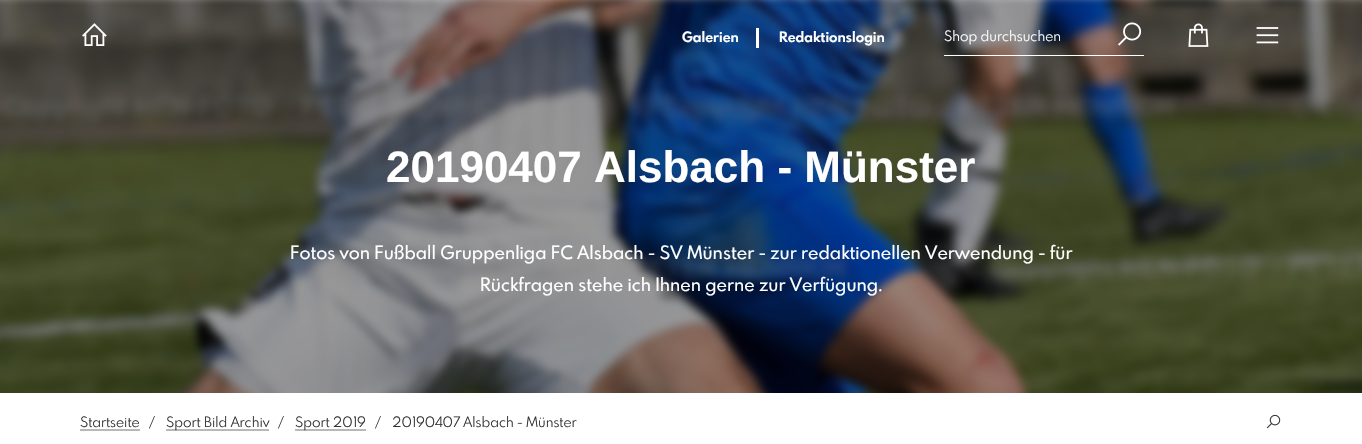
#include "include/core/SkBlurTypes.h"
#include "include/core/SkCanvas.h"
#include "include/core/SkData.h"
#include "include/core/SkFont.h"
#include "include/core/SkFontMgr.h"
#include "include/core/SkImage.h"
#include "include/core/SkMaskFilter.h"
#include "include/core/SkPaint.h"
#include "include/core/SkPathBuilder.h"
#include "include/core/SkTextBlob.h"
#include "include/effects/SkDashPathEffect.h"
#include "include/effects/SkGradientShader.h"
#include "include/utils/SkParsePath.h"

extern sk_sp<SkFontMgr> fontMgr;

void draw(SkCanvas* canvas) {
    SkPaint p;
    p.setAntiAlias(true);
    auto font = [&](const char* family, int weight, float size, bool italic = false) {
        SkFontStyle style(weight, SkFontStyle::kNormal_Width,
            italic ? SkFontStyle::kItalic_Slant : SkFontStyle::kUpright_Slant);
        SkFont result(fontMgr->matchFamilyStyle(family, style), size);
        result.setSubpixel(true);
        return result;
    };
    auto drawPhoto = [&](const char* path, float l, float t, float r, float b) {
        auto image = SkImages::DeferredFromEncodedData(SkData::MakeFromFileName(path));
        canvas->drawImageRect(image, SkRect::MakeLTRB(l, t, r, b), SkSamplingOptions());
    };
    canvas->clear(0xFFFFFFFF);
    drawPhoto("media/1.png", 0, 0, 1362, 393);
    drawPhoto("media/2.png", 82, 23, 107, 46);
    auto font1 = font("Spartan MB", 700, 14);
    p.setColor(0xFFFFFFFF);
    canvas->drawString("Galerien", 682, 42, font1, p);
    canvas->drawRect(SkRect::MakeLTRB(756, 28, 759, 48), p);
    canvas->drawString("Redaktionslogin", 779, 42, font1, p);
    canvas->drawRect(SkRect::MakeLTRB(944, 55, 1144, 56), p);
    auto font2 = font("Spartan MB", 400, 14);
    canvas->drawString("Shop durchsuchen", 944, 41, font2, p);
    drawPhoto("media/3.png", 1118, 22, 1142, 46);
    drawPhoto("media/4.png", 1188, 23, 1209, 47);
    drawPhoto("media/5.png", 1256, 27, 1279, 44);
    auto font3 = font("Liberation Sans", 700, 44);
    canvas->drawString("20190407 Alsbach - Münster", 386, 182, font3, p);
    auto font4 = font("Spartan MB", 500, 18);
    canvas->drawString("Fotos von Fußball Gruppenliga FC Alsbach - SV Münster - zur redaktionellen Verwendung - für", 290, 259, font4, p);
    canvas->drawString("Rückfragen stehe ich Ihnen gerne zur Verfügung.", 480, 291, font4, p);
    p.setColor(0xFF333333);
    canvas->drawString("Startseite", 80, 427, font2, p);
    p.setColor(0xFFB8B8B8);
    canvas->drawRect(SkRect::MakeLTRB(80, 429, 140, 431), p);
    p.setColor(0xFF333333);
    canvas->drawString("/", 149, 427, font2, p);
    p.setColor(0xFFB8B8B8);
    canvas->drawRect(SkRect::MakeLTRB(166, 429, 269, 431), p);
    p.setColor(0xFF333333);
    canvas->drawString("Sport Bild Archiv", 166, 427, font2, p);
    canvas->drawString("/", 278, 427, font2, p);
    p.setColor(0xFFB8B8B8);
    canvas->drawRect(SkRect::MakeLTRB(295, 429, 366, 431), p);
    p.setColor(0xFF333333);
    {
        const struct { const char* s; float x, y; } items[] = {
            {"Sport 2019", 295, 427},
            {"/", 375, 427},
            {"20190407 Alsbach - Münster", 392, 427},
        };
        for (auto [s, x, y] : items) {
            canvas->drawString(s, x, y, font2, p);
        }
    }
    drawPhoto("media/6.png", 1266, 414, 1281, 429);
}
